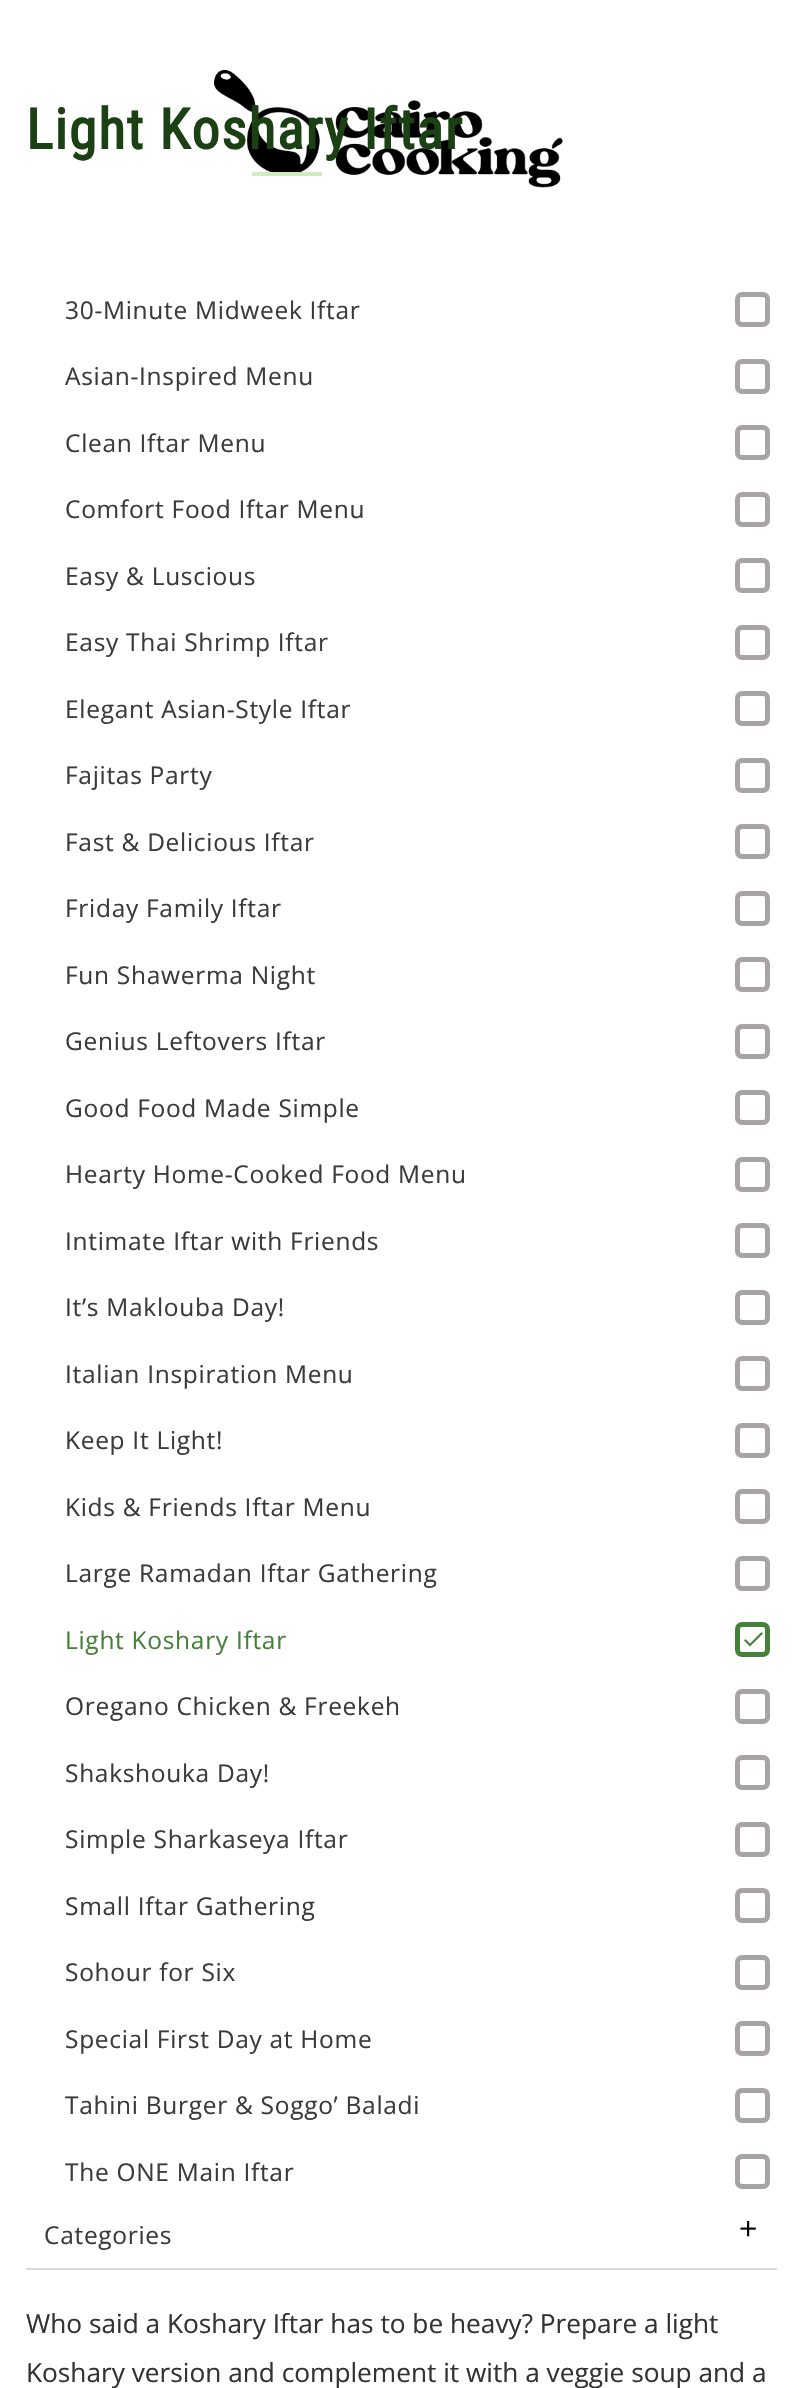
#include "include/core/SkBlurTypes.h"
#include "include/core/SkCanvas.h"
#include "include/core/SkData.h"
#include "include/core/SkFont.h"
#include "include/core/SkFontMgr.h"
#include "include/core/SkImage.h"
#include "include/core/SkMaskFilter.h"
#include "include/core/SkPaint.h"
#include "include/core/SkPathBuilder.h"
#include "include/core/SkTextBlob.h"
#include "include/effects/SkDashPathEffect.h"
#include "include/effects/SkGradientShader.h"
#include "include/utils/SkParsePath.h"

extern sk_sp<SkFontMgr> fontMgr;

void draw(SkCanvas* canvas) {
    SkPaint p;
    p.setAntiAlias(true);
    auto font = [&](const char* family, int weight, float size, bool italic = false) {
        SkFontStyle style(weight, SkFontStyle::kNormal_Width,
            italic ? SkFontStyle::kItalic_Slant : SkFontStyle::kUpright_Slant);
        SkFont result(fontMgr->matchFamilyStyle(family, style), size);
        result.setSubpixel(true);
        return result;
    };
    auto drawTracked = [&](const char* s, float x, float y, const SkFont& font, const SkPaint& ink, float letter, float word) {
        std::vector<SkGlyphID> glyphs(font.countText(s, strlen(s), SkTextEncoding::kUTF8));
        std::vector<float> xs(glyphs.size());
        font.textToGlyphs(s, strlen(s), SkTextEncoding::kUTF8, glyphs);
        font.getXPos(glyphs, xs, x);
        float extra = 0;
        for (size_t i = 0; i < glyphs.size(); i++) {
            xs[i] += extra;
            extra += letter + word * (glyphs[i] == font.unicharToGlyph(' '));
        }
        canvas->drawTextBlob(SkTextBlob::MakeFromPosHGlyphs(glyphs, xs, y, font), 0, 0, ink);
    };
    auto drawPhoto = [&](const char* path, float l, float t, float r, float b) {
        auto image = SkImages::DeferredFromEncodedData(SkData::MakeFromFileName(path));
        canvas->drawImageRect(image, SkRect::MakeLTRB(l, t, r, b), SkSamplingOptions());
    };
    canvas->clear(0xFFFFFFFF);
    drawPhoto("media/1.png", 214, 70, 563, 188);
    auto font1 = font("Roboto Condensed", 700, 56);
    p.setColor(0xFF1B4013);
    drawTracked("Light Koshary Iftar", 26, 149, font1, p, 1.6f, 0);
    p.setColor(0xFFCFEDBB);
    canvas->drawRect(SkRect::MakeLTRB(252, 172, 322, 176), p);
    auto font2 = font("Open Sans", 400, 24.5f);
    p.setColor(0xFF3B3B3B);
    drawTracked("30-Minute Midweek Iftar", 65, 319, font2, p, 0.7f, 0);
    p.setStyle(SkPaint::kStroke_Style);
    p.setStrokeWidth(5);
    p.setColor(0xFFA8A4A4);
    canvas->drawRoundRect(SkRect::MakeLTRB(737.5f, 294.5f, 767.5f, 324.5f), 4.5f, 4.5f, p);
    p.setStyle(SkPaint::kFill_Style);
    p.setColor(0xFF3B3B3B);
    drawTracked("Asian-Inspired Menu", 65, 385, font2, p, 0.7f, 0);
    p.setStyle(SkPaint::kStroke_Style);
    p.setColor(0xFFA8A4A4);
    canvas->drawRoundRect(SkRect::MakeLTRB(737.5f, 361.5f, 767.5f, 391.5f), 4.5f, 4.5f, p);
    p.setStyle(SkPaint::kFill_Style);
    p.setColor(0xFF3B3B3B);
    drawTracked("Clean Iftar Menu", 65, 452, font2, p, 0.7f, 0);
    p.setStyle(SkPaint::kStroke_Style);
    p.setColor(0xFFA8A4A4);
    canvas->drawRoundRect(SkRect::MakeLTRB(737.5f, 427.5f, 767.5f, 457.5f), 4.5f, 4.5f, p);
    p.setStyle(SkPaint::kFill_Style);
    p.setColor(0xFF3B3B3B);
    drawTracked("Comfort Food Iftar Menu", 65, 518, font2, p, 0.7f, 0);
    p.setStyle(SkPaint::kStroke_Style);
    p.setColor(0xFFA8A4A4);
    canvas->drawRoundRect(SkRect::MakeLTRB(737.5f, 494.5f, 767.5f, 524.5f), 4.5f, 4.5f, p);
    p.setStyle(SkPaint::kFill_Style);
    p.setColor(0xFF3B3B3B);
    drawTracked("Easy & Luscious", 65, 585, font2, p, 0.7f, 0);
    p.setStyle(SkPaint::kStroke_Style);
    p.setColor(0xFFA8A4A4);
    canvas->drawRoundRect(SkRect::MakeLTRB(737.5f, 560.5f, 767.5f, 590.5f), 4.5f, 4.5f, p);
    p.setStyle(SkPaint::kFill_Style);
    p.setColor(0xFF3B3B3B);
    drawTracked("Easy Thai Shrimp Iftar", 65, 651, font2, p, 0.7f, 0);
    p.setStyle(SkPaint::kStroke_Style);
    p.setColor(0xFFA8A4A4);
    canvas->drawRoundRect(SkRect::MakeLTRB(737.5f, 627.5f, 767.5f, 657.5f), 4.5f, 4.5f, p);
    p.setStyle(SkPaint::kFill_Style);
    p.setColor(0xFF3B3B3B);
    drawTracked("Elegant Asian-Style Iftar", 65, 718, font2, p, 0.7f, 0);
    p.setStyle(SkPaint::kStroke_Style);
    p.setColor(0xFFA8A4A4);
    canvas->drawRoundRect(SkRect::MakeLTRB(737.5f, 693.5f, 767.5f, 723.5f), 4.5f, 4.5f, p);
    p.setStyle(SkPaint::kFill_Style);
    p.setColor(0xFF3B3B3B);
    drawTracked("Fajitas Party", 65, 784, font2, p, 0.7f, 0);
    p.setStyle(SkPaint::kStroke_Style);
    p.setColor(0xFFA8A4A4);
    canvas->drawRoundRect(SkRect::MakeLTRB(737.5f, 760.5f, 767.5f, 790.5f), 4.5f, 4.5f, p);
    p.setStyle(SkPaint::kFill_Style);
    p.setColor(0xFF3B3B3B);
    drawTracked("Fast & Delicious Iftar", 65, 851, font2, p, 0.7f, 0);
    p.setStyle(SkPaint::kStroke_Style);
    p.setColor(0xFFA8A4A4);
    canvas->drawRoundRect(SkRect::MakeLTRB(737.5f, 826.5f, 767.5f, 856.5f), 4.5f, 4.5f, p);
    p.setStyle(SkPaint::kFill_Style);
    p.setColor(0xFF3B3B3B);
    drawTracked("Friday Family Iftar", 65, 917, font2, p, 0.7f, 0);
    p.setStyle(SkPaint::kStroke_Style);
    p.setColor(0xFFA8A4A4);
    canvas->drawRoundRect(SkRect::MakeLTRB(737.5f, 893.5f, 767.5f, 923.5f), 4.5f, 4.5f, p);
    p.setStyle(SkPaint::kFill_Style);
    p.setColor(0xFF3B3B3B);
    drawTracked("Fun Shawerma Night", 65, 984, font2, p, 0.7f, 0);
    p.setStyle(SkPaint::kStroke_Style);
    p.setColor(0xFFA8A4A4);
    canvas->drawRoundRect(SkRect::MakeLTRB(737.5f, 959.5f, 767.5f, 989.5f), 4.5f, 4.5f, p);
    p.setStyle(SkPaint::kFill_Style);
    p.setColor(0xFF3B3B3B);
    drawTracked("Genius Leftovers Iftar", 65, 1050, font2, p, 0.7f, 0);
    p.setStyle(SkPaint::kStroke_Style);
    p.setColor(0xFFA8A4A4);
    canvas->drawRoundRect(SkRect::MakeLTRB(737.5f, 1026.5f, 767.5f, 1056.5f), 4.5f, 4.5f, p);
    p.setStyle(SkPaint::kFill_Style);
    p.setColor(0xFF3B3B3B);
    drawTracked("Good Food Made Simple", 65, 1117, font2, p, 0.7f, 0);
    p.setStyle(SkPaint::kStroke_Style);
    p.setColor(0xFFA8A4A4);
    canvas->drawRoundRect(SkRect::MakeLTRB(737.5f, 1092.5f, 767.5f, 1122.5f), 4.5f, 4.5f, p);
    p.setStyle(SkPaint::kFill_Style);
    p.setColor(0xFF3B3B3B);
    drawTracked("Hearty Home-Cooked Food Menu", 65, 1183, font2, p, 0.7f, 0);
    p.setStyle(SkPaint::kStroke_Style);
    p.setColor(0xFFA8A4A4);
    canvas->drawRoundRect(SkRect::MakeLTRB(737.5f, 1159.5f, 767.5f, 1189.5f), 4.5f, 4.5f, p);
    p.setStyle(SkPaint::kFill_Style);
    p.setColor(0xFF3B3B3B);
    drawTracked("Intimate Iftar with Friends", 65, 1250, font2, p, 0.7f, 0);
    p.setStyle(SkPaint::kStroke_Style);
    p.setColor(0xFFA8A4A4);
    canvas->drawRoundRect(SkRect::MakeLTRB(737.5f, 1225.5f, 767.5f, 1255.5f), 4.5f, 4.5f, p);
    p.setStyle(SkPaint::kFill_Style);
    p.setColor(0xFF3B3B3B);
    drawTracked("It’s Maklouba Day!", 65, 1316, font2, p, 0.7f, 0);
    p.setStyle(SkPaint::kStroke_Style);
    p.setColor(0xFFA8A4A4);
    canvas->drawRoundRect(SkRect::MakeLTRB(737.5f, 1292.5f, 767.5f, 1322.5f), 4.5f, 4.5f, p);
    p.setStyle(SkPaint::kFill_Style);
    p.setColor(0xFF3B3B3B);
    drawTracked("Italian Inspiration Menu", 65, 1383, font2, p, 0.7f, 0);
    p.setStyle(SkPaint::kStroke_Style);
    p.setColor(0xFFA8A4A4);
    canvas->drawRoundRect(SkRect::MakeLTRB(737.5f, 1358.5f, 767.5f, 1388.5f), 4.5f, 4.5f, p);
    p.setStyle(SkPaint::kFill_Style);
    p.setColor(0xFF3B3B3B);
    drawTracked("Keep It Light!", 65, 1449, font2, p, 0.7f, 0);
    p.setStyle(SkPaint::kStroke_Style);
    p.setColor(0xFFA8A4A4);
    canvas->drawRoundRect(SkRect::MakeLTRB(737.5f, 1425.5f, 767.5f, 1455.5f), 4.5f, 4.5f, p);
    p.setStyle(SkPaint::kFill_Style);
    p.setColor(0xFF3B3B3B);
    drawTracked("Kids & Friends Iftar Menu", 65, 1516, font2, p, 0.7f, 0);
    p.setStyle(SkPaint::kStroke_Style);
    p.setColor(0xFFA8A4A4);
    canvas->drawRoundRect(SkRect::MakeLTRB(737.5f, 1491.5f, 767.5f, 1521.5f), 4.5f, 4.5f, p);
    p.setStyle(SkPaint::kFill_Style);
    p.setColor(0xFF3B3B3B);
    drawTracked("Large Ramadan Iftar Gathering", 65, 1582, font2, p, 0.7f, 0);
    p.setStyle(SkPaint::kStroke_Style);
    p.setColor(0xFFA8A4A4);
    canvas->drawRoundRect(SkRect::MakeLTRB(737.5f, 1558.5f, 767.5f, 1588.5f), 4.5f, 4.5f, p);
    p.setStyle(SkPaint::kFill_Style);
    p.setColor(0xFF468139);
    drawTracked("Light Koshary Iftar", 65, 1649, font2, p, 0.7f, 0);
    p.setStyle(SkPaint::kStroke_Style);
    canvas->drawRoundRect(SkRect::MakeLTRB(737.5f, 1624.5f, 767.5f, 1654.5f), 4.5f, 4.5f, p);
    p.setStyle(SkPaint::kFill_Style);
    canvas->drawPath(SkPathBuilder().moveTo(750, 1643.5f).lineTo(761.5f, 1632).lineTo(763, 1633.5f).lineTo(750, 1646.5f).lineTo(744, 1640.5f).lineTo(745.5f, 1639).close().detach(), p);
    p.setColor(0xFF3B3B3B);
    drawTracked("Oregano Chicken & Freekeh", 65, 1715, font2, p, 0.7f, 0);
    p.setStyle(SkPaint::kStroke_Style);
    p.setColor(0xFFA8A4A4);
    canvas->drawRoundRect(SkRect::MakeLTRB(737.5f, 1691.5f, 767.5f, 1721.5f), 4.5f, 4.5f, p);
    p.setStyle(SkPaint::kFill_Style);
    p.setColor(0xFF3B3B3B);
    drawTracked("Shakshouka Day!", 65, 1782, font2, p, 0.7f, 0);
    p.setStyle(SkPaint::kStroke_Style);
    p.setColor(0xFFA8A4A4);
    canvas->drawRoundRect(SkRect::MakeLTRB(737.5f, 1757.5f, 767.5f, 1787.5f), 4.5f, 4.5f, p);
    p.setStyle(SkPaint::kFill_Style);
    p.setColor(0xFF3B3B3B);
    drawTracked("Simple Sharkaseya Iftar", 65, 1848, font2, p, 0.7f, 0);
    p.setStyle(SkPaint::kStroke_Style);
    p.setColor(0xFFA8A4A4);
    canvas->drawRoundRect(SkRect::MakeLTRB(737.5f, 1824.5f, 767.5f, 1854.5f), 4.5f, 4.5f, p);
    p.setStyle(SkPaint::kFill_Style);
    p.setColor(0xFF3B3B3B);
    drawTracked("Small Iftar Gathering", 65, 1915, font2, p, 0.7f, 0);
    p.setStyle(SkPaint::kStroke_Style);
    p.setColor(0xFFA8A4A4);
    canvas->drawRoundRect(SkRect::MakeLTRB(737.5f, 1890.5f, 767.5f, 1920.5f), 4.5f, 4.5f, p);
    p.setStyle(SkPaint::kFill_Style);
    p.setColor(0xFF3B3B3B);
    drawTracked("Sohour for Six", 65, 1981, font2, p, 0.7f, 0);
    p.setStyle(SkPaint::kStroke_Style);
    p.setColor(0xFFA8A4A4);
    canvas->drawRoundRect(SkRect::MakeLTRB(737.5f, 1957.5f, 767.5f, 1987.5f), 4.5f, 4.5f, p);
    p.setStyle(SkPaint::kFill_Style);
    p.setColor(0xFF3B3B3B);
    drawTracked("Special First Day at Home", 65, 2048, font2, p, 0.7f, 0);
    p.setStyle(SkPaint::kStroke_Style);
    p.setColor(0xFFA8A4A4);
    canvas->drawRoundRect(SkRect::MakeLTRB(737.5f, 2023.5f, 767.5f, 2053.5f), 4.5f, 4.5f, p);
    p.setStyle(SkPaint::kFill_Style);
    p.setColor(0xFF3B3B3B);
    drawTracked("Tahini Burger & Soggo’ Baladi", 65, 2114, font2, p, 0.7f, 0);
    p.setStyle(SkPaint::kStroke_Style);
    p.setColor(0xFFA8A4A4);
    canvas->drawRoundRect(SkRect::MakeLTRB(737.5f, 2090.5f, 767.5f, 2120.5f), 4.5f, 4.5f, p);
    p.setStyle(SkPaint::kFill_Style);
    p.setColor(0xFF3B3B3B);
    drawTracked("The ONE Main Iftar", 65, 2181, font2, p, 0.7f, 0);
    p.setStyle(SkPaint::kStroke_Style);
    p.setColor(0xFFA8A4A4);
    canvas->drawRoundRect(SkRect::MakeLTRB(737.5f, 2156.5f, 767.5f, 2186.5f), 4.5f, 4.5f, p);
    p.setStyle(SkPaint::kFill_Style);
    p.setColor(0xFFD9D9D9);
    canvas->drawRect(SkRect::MakeLTRB(26, 2268, 777, 2270), p);
    p.setColor(0xFF3B3B3B);
    drawTracked("Categories", 44, 2244, font2, p, 0.7f, 0);
    drawPhoto("media/2.png", 740, 2221, 756, 2237);
    auto font3 = font("Open Sans", 400, 26.25f);
    p.setColor(0xFF333333);
    canvas->drawString("Who said a Koshary Iftar has to be heavy? Prepare a light", 26, 2333, font3, p);
    canvas->drawString("Koshary version and complement it with a veggie soup and a", 26, 2382, font3, p);
}
